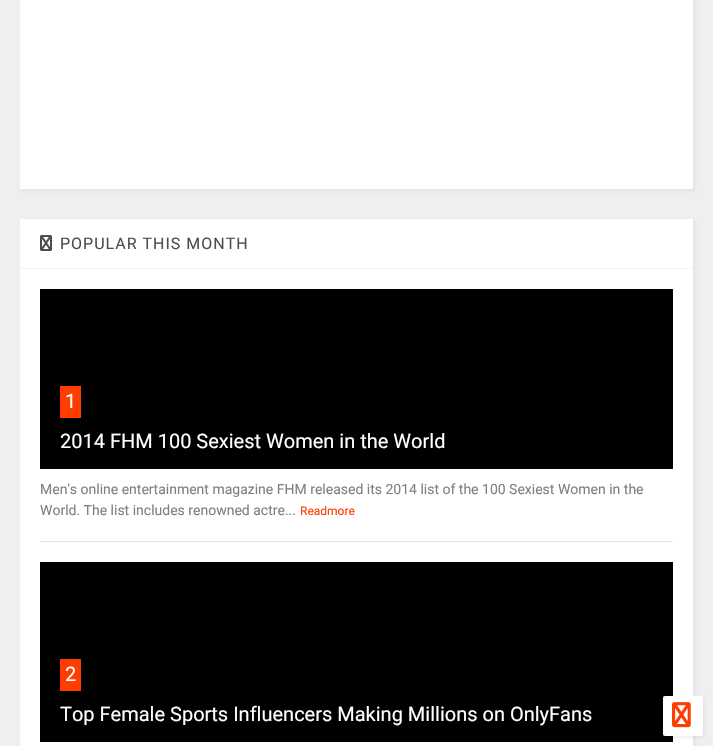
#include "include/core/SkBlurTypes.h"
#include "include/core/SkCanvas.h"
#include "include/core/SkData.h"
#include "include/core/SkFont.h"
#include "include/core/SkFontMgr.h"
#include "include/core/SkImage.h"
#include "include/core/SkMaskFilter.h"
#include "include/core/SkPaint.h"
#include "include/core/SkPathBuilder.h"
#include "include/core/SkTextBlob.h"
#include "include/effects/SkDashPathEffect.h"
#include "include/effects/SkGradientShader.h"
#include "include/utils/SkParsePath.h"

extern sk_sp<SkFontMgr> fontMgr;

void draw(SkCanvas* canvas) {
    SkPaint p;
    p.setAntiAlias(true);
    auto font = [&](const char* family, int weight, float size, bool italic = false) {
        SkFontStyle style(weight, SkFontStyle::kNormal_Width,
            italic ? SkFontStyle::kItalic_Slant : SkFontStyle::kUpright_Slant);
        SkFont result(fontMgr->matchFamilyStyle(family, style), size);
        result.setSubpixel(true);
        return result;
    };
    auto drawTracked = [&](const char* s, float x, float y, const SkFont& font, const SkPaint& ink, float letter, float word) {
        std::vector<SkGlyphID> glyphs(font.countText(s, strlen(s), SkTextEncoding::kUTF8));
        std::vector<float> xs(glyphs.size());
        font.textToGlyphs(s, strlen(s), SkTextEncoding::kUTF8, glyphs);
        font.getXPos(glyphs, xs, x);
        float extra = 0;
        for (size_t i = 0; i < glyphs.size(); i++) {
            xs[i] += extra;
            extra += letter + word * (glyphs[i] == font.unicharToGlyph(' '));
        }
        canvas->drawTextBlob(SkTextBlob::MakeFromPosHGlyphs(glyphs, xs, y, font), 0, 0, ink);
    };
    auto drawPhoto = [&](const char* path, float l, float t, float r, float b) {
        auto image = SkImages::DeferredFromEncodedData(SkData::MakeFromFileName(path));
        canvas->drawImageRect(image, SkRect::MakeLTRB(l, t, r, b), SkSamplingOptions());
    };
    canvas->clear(0xFFEFEFEF);
    p.setColor(0x0D000000);
    p.setMaskFilter(SkMaskFilter::MakeBlur(kNormal_SkBlurStyle, 1.5f));
    canvas->drawRect(SkRect::MakeLTRB(22, -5, 695, 191), p);
    p.setMaskFilter(nullptr);
    p.setColor(0xFFFFFFFF);
    canvas->drawRect(SkRect::MakeLTRB(20, 0, 693, 189), p);
    p.setColor(0x0D000000);
    p.setMaskFilter(SkMaskFilter::MakeBlur(kNormal_SkBlurStyle, 1.5f));
    canvas->drawRect(SkRect::MakeLTRB(22, 221, 695, 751), p);
    p.setMaskFilter(nullptr);
    p.setColor(0xFFFFFFFF);
    canvas->drawRect(SkRect::MakeLTRB(20, 219, 693, 746), p);
    p.setColor(0xFFF4F4F4);
    canvas->drawRect(SkRect::MakeLTRB(20, 268, 693, 269), p);
    drawPhoto("media/1.png", 40, 235, 52, 251);
    auto font1 = font("Roboto", 400, 16);
    p.setColor(0xFF4D4D4D);
    drawTracked("POPULAR THIS MONTH", 60, 249, font1, p, 1, 0);
    p.setColor(0xFF000000);
    canvas->drawRect(SkRect::MakeLTRB(40, 289, 673, 469), p);
    p.setColor(0xFFFF3D00);
    canvas->drawRect(SkRect::MakeLTRB(60, 386, 81, 418), p);
    auto font2 = font("Roboto", 400, 20);
    p.setColor(0xFFFFFFFF);
    canvas->drawString("1", 65, 408, font2, p);
    canvas->drawString("2014 FHM 100 Sexiest Women in the World", 60, 448, font2, p);
    p.setColor(0xFFE4E4E4);
    canvas->drawRect(SkRect::MakeLTRB(40, 541, 673, 542), p);
    auto font3 = font("Roboto", 400, 14);
    p.setColor(0xFF808080);
    canvas->drawString("Men's online entertainment magazine FHM released its 2014 list of the 100 Sexiest Women in the", 40, 494, font3, p);
    canvas->drawString("World. The list includes renowned actre...", 40, 515, font3, p);
    auto font4 = font("Roboto", 400, 12);
    p.setColor(0xFFFF3D00);
    canvas->drawString("Readmore", 300, 515, font4, p);
    p.setColor(0xFF000000);
    canvas->drawRect(SkRect::MakeLTRB(40, 562, 673, 742), p);
    p.setColor(0xFFFF3D00);
    canvas->drawRect(SkRect::MakeLTRB(60, 659, 81, 691), p);
    p.setColor(0xFFFFFFFF);
    canvas->drawString("2", 65, 681, font2, p);
    canvas->drawString("Top Female Sports Influencers Making Millions on OnlyFans", 60, 721, font2, p);
    p.setColor(0x0D000000);
    p.setMaskFilter(SkMaskFilter::MakeBlur(kNormal_SkBlurStyle, 1.5f));
    canvas->drawRoundRect(SkRect::MakeLTRB(665, 698, 705, 738), 2, 2, p);
    p.setMaskFilter(nullptr);
    p.setColor(0xFFFFFFFF);
    canvas->drawRoundRect(SkRect::MakeLTRB(663, 696, 703, 736), 2, 2, p);
    drawPhoto("media/2.png", 672, 702, 691, 728);
}
